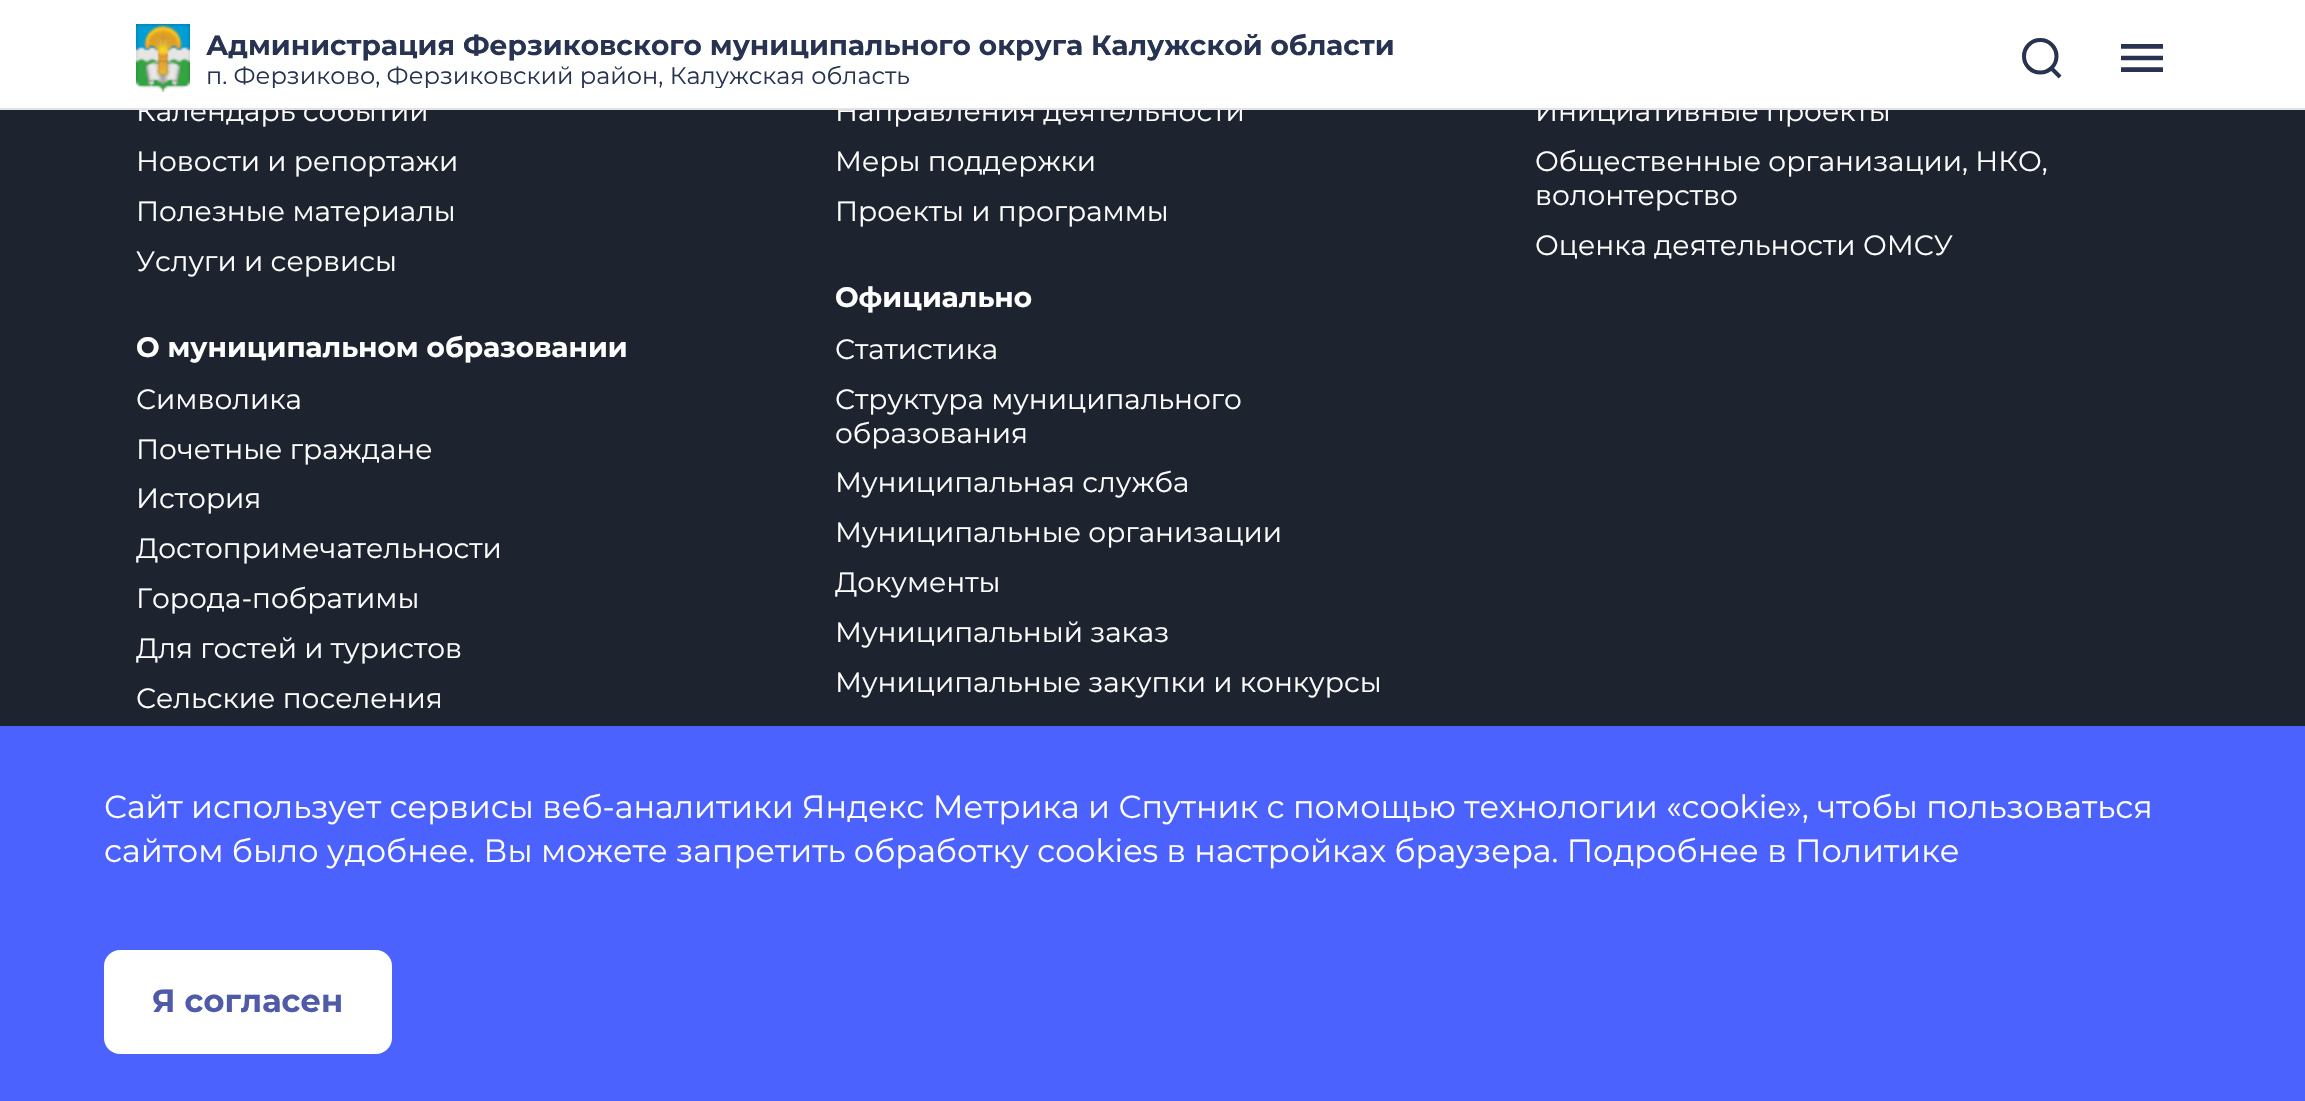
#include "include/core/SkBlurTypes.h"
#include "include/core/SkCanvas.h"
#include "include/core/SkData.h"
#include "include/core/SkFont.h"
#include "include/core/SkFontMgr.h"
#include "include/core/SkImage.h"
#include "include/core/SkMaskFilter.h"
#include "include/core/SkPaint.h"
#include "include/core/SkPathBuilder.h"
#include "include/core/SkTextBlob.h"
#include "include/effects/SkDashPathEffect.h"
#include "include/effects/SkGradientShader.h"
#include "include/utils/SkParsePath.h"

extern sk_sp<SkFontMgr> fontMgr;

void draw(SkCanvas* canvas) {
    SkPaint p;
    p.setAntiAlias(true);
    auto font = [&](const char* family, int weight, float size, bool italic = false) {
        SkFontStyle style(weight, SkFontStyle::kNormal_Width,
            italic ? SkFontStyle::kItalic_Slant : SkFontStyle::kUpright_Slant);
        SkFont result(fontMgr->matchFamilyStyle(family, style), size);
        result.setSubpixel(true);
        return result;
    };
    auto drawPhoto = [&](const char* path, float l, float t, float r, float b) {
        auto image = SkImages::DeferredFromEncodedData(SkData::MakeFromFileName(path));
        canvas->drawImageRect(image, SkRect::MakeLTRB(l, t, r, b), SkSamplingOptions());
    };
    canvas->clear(0xFF1D232F);
    p.setColor(0xFFFFFFFF);
    canvas->drawRect(SkRect::MakeLTRB(0, 0, 2305, 108), p);
    auto font1 = font("Montserrat", 400, 28);
    {
        const struct { const char* s; float x, y; } items[] = {
            {"Календарь событий", 136, 121},
            {"Направления деятельности", 835, 121},
            {"Инициативные проекты", 1535, 121},
        };
        for (auto [s, x, y] : items) {
            canvas->drawString(s, x, y, font1, p);
        }
    }
    p.setColor(0xFFE3E3E3);
    canvas->drawRect(SkRect::MakeLTRB(0, 108, 2305, 110), p);
    drawPhoto("media/1.png", 136, 24, 190, 92);
    auto font2 = font("Montserrat", 700, 28);
    p.setColor(0xFF273350);
    canvas->drawString("Администрация Ферзиковского муниципального округа Калужской области", 206, 55, font2, p);
    canvas->save();
    canvas->clipRect(SkRect::MakeLTRB(206, 64, 1970, 88));
    auto font3 = font("Montserrat", 400, 24);
    canvas->drawString("п. Ферзиково, Ферзиковский район, Калужская область", 206, 84, font3, p);
    canvas->restore();
    drawPhoto("media/2.png", 2022, 38, 2062, 79);
    drawPhoto("media/3.png", 2121, 44, 2163, 72);
    p.setColor(0xFFFFFFFF);
    {
        const struct { const char* s; float x, y; } items[] = {
            {"Новости и репортажи", 136, 171},
            {"Полезные материалы", 136, 221},
            {"Услуги и сервисы", 136, 271},
        };
        for (auto [s, x, y] : items) {
            canvas->drawString(s, x, y, font1, p);
        }
    }
    canvas->drawString("О муниципальном образовании", 136, 357, font2, p);
    {
        const struct { const char* s; float x, y; } items[] = {
            {"Символика", 136, 409},
            {"Почетные граждане", 136, 459},
            {"История", 136, 508},
            {"Достопримечательности", 136, 558},
            {"Города-побратимы", 136, 608},
            {"Для гостей и туристов", 136, 658},
            {"Сельские поселения", 136, 708},
            {"Меры поддержки", 835, 171},
            {"Проекты и программы", 835, 221},
        };
        for (auto [s, x, y] : items) {
            canvas->drawString(s, x, y, font1, p);
        }
    }
    canvas->drawString("Официально", 835, 307, font2, p);
    {
        const struct { const char* s; float x, y; } items[] = {
            {"Статистика", 835, 359},
            {"Структура муниципального", 835, 409},
            {"образования", 835, 443},
            {"Муниципальная служба", 835, 492},
            {"Муниципальные организации", 835, 542},
            {"Документы", 835, 592},
            {"Муниципальный заказ", 835, 642},
            {"Муниципальные закупки и конкурсы", 835, 692},
            {"Общественные организации, НКО,", 1535, 171},
            {"волонтерство", 1535, 205},
            {"Оценка деятельности ОМСУ", 1535, 255},
        };
        for (auto [s, x, y] : items) {
            canvas->drawString(s, x, y, font1, p);
        }
    }
    p.setColor(0xFF4B62FF);
    canvas->drawRect(SkRect::MakeLTRB(0, 726, 2305, 1101), p);
    auto font4 = font("Montserrat", 400, 32);
    p.setColor(0xFFFFFFFF);
    canvas->drawString("Сайт использует сервисы веб-аналитики Яндекс Метрика и Спутник с помощью технологии «cookie», чтобы пользоваться", 104, 818, font4, p);
    canvas->drawString("сайтом было удобнее. Вы можете запретить обработку cookies в настройках браузера. Подробнее в Политике", 104, 862, font4, p);
    canvas->drawRoundRect(SkRect::MakeLTRB(104, 950, 392, 1054), 16, 16, p);
    auto font5 = font("Montserrat", 700, 32);
    p.setColor(0xFF4F5AA8);
    canvas->drawString("Я согласен", 152, 1012, font5, p);
}
